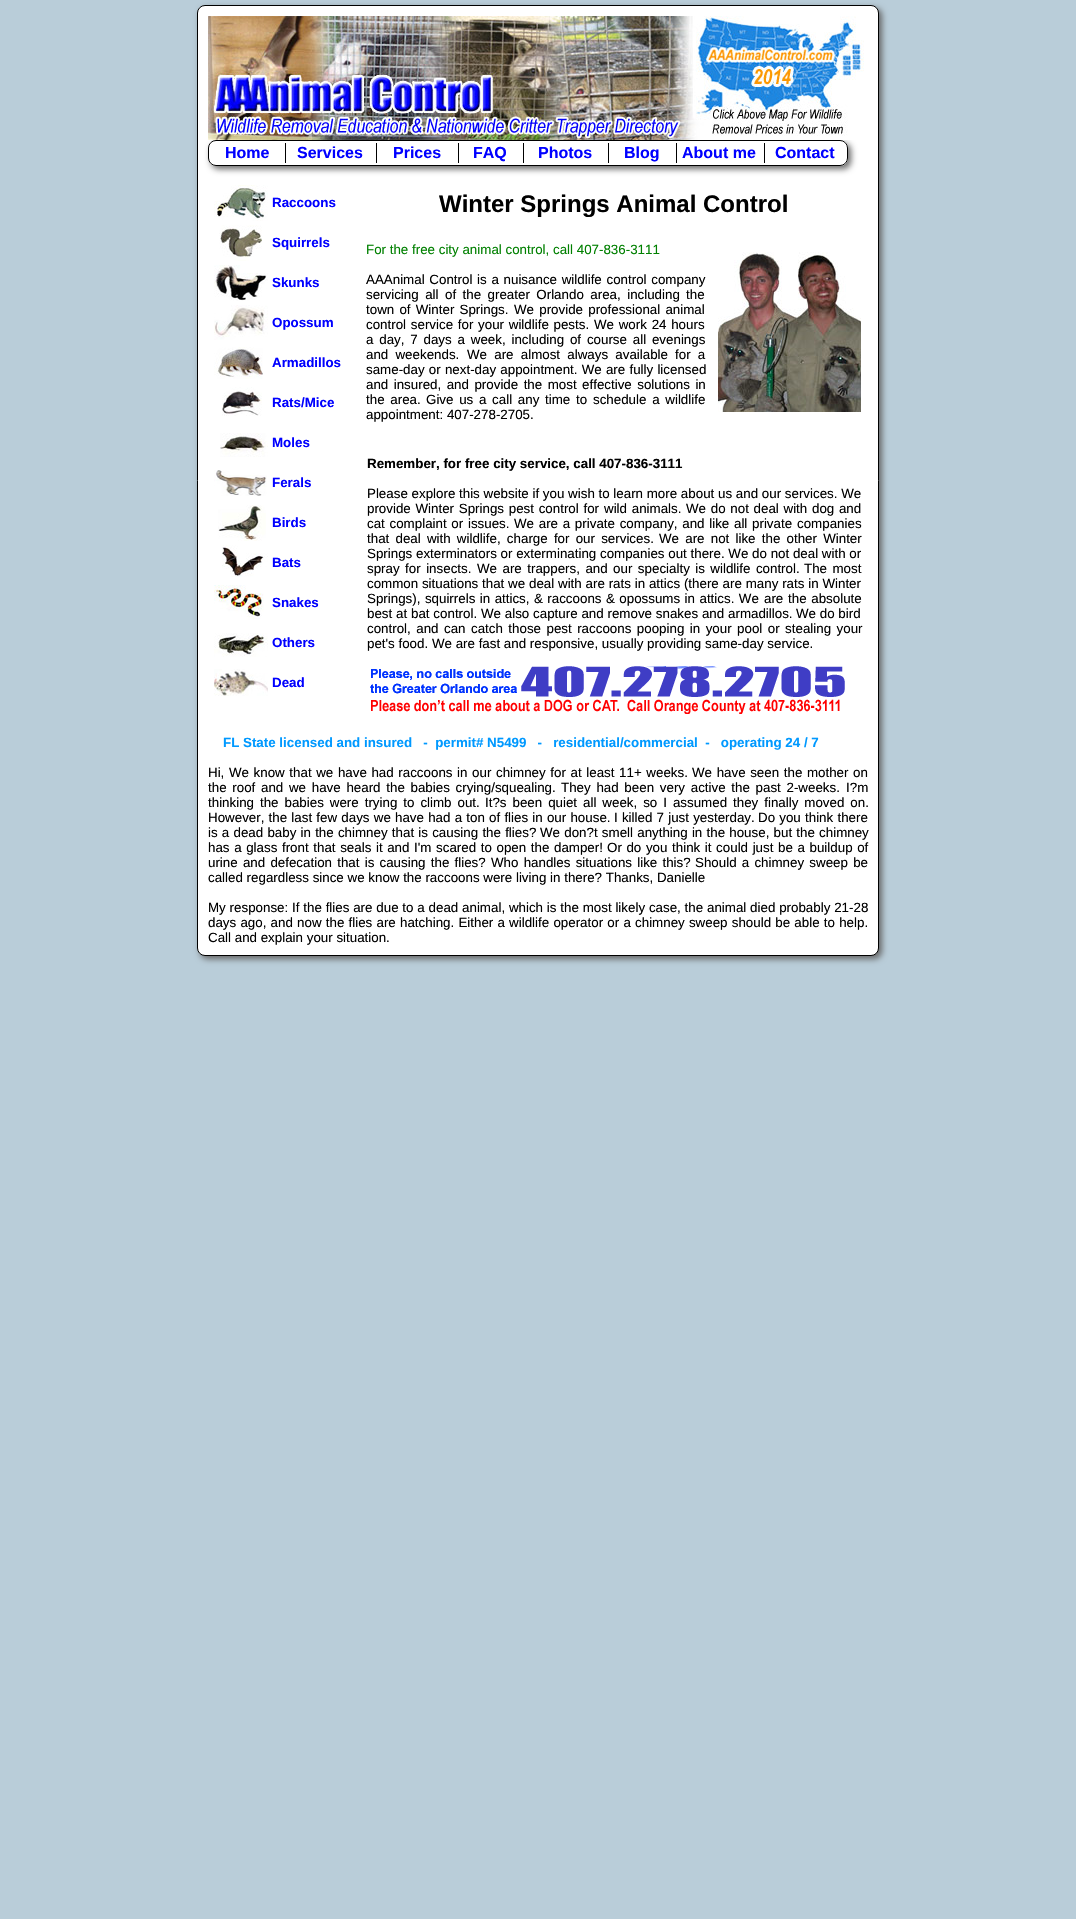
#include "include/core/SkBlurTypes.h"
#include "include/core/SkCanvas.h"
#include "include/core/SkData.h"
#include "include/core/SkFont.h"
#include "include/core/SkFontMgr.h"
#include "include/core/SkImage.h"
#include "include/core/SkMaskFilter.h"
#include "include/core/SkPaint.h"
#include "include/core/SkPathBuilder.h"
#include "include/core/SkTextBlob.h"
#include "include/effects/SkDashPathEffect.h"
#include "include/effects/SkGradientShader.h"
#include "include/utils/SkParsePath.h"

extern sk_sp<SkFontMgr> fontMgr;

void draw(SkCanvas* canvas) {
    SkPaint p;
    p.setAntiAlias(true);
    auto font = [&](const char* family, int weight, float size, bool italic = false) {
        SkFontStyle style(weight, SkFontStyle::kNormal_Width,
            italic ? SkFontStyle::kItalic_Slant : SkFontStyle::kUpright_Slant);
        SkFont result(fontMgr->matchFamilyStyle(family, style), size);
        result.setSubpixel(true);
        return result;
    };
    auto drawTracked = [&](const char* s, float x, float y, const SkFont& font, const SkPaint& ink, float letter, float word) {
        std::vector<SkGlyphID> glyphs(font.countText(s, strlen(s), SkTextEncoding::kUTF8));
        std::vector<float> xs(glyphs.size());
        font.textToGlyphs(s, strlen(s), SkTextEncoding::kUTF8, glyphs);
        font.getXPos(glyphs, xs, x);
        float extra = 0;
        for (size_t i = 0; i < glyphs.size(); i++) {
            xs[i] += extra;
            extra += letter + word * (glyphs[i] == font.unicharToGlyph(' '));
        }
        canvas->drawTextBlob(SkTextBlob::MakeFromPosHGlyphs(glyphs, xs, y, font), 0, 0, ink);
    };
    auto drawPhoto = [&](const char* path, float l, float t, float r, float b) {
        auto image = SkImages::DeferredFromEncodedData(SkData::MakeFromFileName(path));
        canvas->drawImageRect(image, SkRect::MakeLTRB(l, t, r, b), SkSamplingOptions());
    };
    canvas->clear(0xFFB9CDD9);
    p.setColor(0xFF666666);
    p.setMaskFilter(SkMaskFilter::MakeBlur(kNormal_SkBlurStyle, 3));
    canvas->drawRoundRect(SkRect::MakeLTRB(200, 8, 882, 959), 8, 8, p);
    p.setMaskFilter(nullptr);
    p.setColor(0xFFFFFFFF);
    canvas->drawRoundRect(SkRect::MakeLTRB(197.5f, 5.5f, 878.5f, 955.5f), 7.5f, 7.5f, p);
    p.setStyle(SkPaint::kStroke_Style);
    p.setStrokeWidth(1);
    p.setColor(0xFF000000);
    canvas->drawRoundRect(SkRect::MakeLTRB(197.5f, 5.5f, 878.5f, 955.5f), 7.5f, 7.5f, p);
    canvas->save();
    canvas->clipPath(SkPathBuilder(SkPathFillType::kEvenOdd).moveTo(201, 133).lineTo(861, 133).lineTo(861, 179).lineTo(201, 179).close().moveTo(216, 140).lineTo(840, 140).cubicTo(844.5f, 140, 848, 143.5f, 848, 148).lineTo(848, 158).cubicTo(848, 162.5f, 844.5f, 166, 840, 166).lineTo(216, 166).cubicTo(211.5f, 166, 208, 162.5f, 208, 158).lineTo(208, 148).cubicTo(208, 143.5f, 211.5f, 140, 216, 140).close().detach(), true);
    p.setStyle(SkPaint::kFill_Style);
    p.setColor(0xFF666666);
    p.setMaskFilter(SkMaskFilter::MakeBlur(kNormal_SkBlurStyle, 3));
    canvas->drawRoundRect(SkRect::MakeLTRB(211, 143, 851, 169), 8, 8, p);
    p.setMaskFilter(nullptr);
    canvas->restore();
    drawPhoto("media/1.png", 208, 16, 864, 140);
    p.setStyle(SkPaint::kStroke_Style);
    p.setColor(0xFF000000);
    canvas->drawRoundRect(SkRect::MakeLTRB(208.5f, 140.5f, 847.5f, 165.5f), 7.5f, 7.5f, p);
    auto font1 = font("Liberation Sans", 700, 16);
    p.setStyle(SkPaint::kFill_Style);
    p.setColor(0xFF0000FF);
    canvas->drawString("Home", 225, 158, font1, p);
    p.setColor(0xFF000000);
    canvas->drawRect(SkRect::MakeLTRB(285, 143, 286, 163), p);
    p.setColor(0xFF0000FF);
    canvas->drawString("Services", 297, 158, font1, p);
    p.setColor(0xFF000000);
    canvas->drawRect(SkRect::MakeLTRB(376, 143, 377, 163), p);
    p.setColor(0xFF0000FF);
    canvas->drawString("Prices", 393, 158, font1, p);
    p.setColor(0xFF000000);
    canvas->drawRect(SkRect::MakeLTRB(458, 143, 459, 163), p);
    p.setColor(0xFF0000FF);
    canvas->drawString("FAQ", 473, 158, font1, p);
    p.setColor(0xFF000000);
    canvas->drawRect(SkRect::MakeLTRB(523, 143, 524, 163), p);
    p.setColor(0xFF0000FF);
    canvas->drawString("Photos", 538, 158, font1, p);
    p.setColor(0xFF000000);
    canvas->drawRect(SkRect::MakeLTRB(608, 143, 609, 163), p);
    p.setColor(0xFF0000FF);
    canvas->drawString("Blog", 624, 158, font1, p);
    p.setColor(0xFF000000);
    canvas->drawRect(SkRect::MakeLTRB(676, 143, 677, 163), p);
    p.setColor(0xFF0000FF);
    canvas->drawString("About me", 682, 158, font1, p);
    p.setColor(0xFF000000);
    canvas->drawRect(SkRect::MakeLTRB(764, 143, 765, 163), p);
    p.setColor(0xFF0000FF);
    canvas->drawString("Contact", 775, 158, font1, p);
    drawPhoto("media/2.png", 214, 185, 268, 221);
    auto font2 = font("Liberation Sans", 700, 13.35f);
    canvas->drawString("Raccoons", 272, 207, font2, p);
    drawPhoto("media/3.png", 219, 225, 262, 261);
    canvas->drawString("Squirrels", 272, 247, font2, p);
    drawPhoto("media/4.png", 214, 265, 268, 301);
    canvas->drawString("Skunks", 272, 287, font2, p);
    drawPhoto("media/5.png", 214, 305, 268, 340);
    canvas->drawString("Opossum", 272, 327, font2, p);
    drawPhoto("media/6.png", 214, 347, 263, 379);
    canvas->drawString("Armadillos", 272, 367, font2, p);
    drawPhoto("media/7.png", 222, 387, 262, 416);
    canvas->drawString("Rats/Mice", 272, 407, font2, p);
    drawPhoto("media/8.png", 220, 433, 268, 457);
    canvas->drawString("Moles", 272, 447, font2, p);
    drawPhoto("media/9.png", 214, 470, 267, 496);
    canvas->drawString("Ferals", 272, 487, font2, p);
    drawPhoto("media/10.png", 218, 505, 266, 541);
    canvas->drawString("Birds", 272, 527, font2, p);
    drawPhoto("media/11.png", 222, 545, 268, 577);
    canvas->drawString("Bats", 272, 567, font2, p);
    drawPhoto("media/12.png", 214, 585, 264, 620);
    canvas->drawString("Snakes", 272, 607, font2, p);
    drawPhoto("media/13.png", 214, 633, 268, 657);
    canvas->drawString("Others", 272, 647, font2, p);
    drawPhoto("media/14.png", 214, 669, 268, 696);
    canvas->drawString("Dead", 272, 687, font2, p);
    auto font3 = font("Liberation Sans", 700, 24);
    p.setColor(0xFF000000);
    canvas->drawString("Winter Springs Animal Control", 439, 212, font3, p);
    auto font4 = font("Liberation Sans", 400, 13.35f);
    p.setColor(0xFF008000);
    canvas->drawString("For the free city animal control, call 407-836-3111", 366, 254, font4, p);
    p.setColor(0xFF000000);
    drawTracked("AAAnimal Control is a nuisance wildlife control company", 366, 284, font4, p, 0, 1);
    drawTracked("servicing all of the greater Orlando area, including", 366, 299, font4, p, 0, 2.75f);
    canvas->drawString("the", 686, 299, font4, p);
    drawTracked("town of Winter Springs.", 366, 314, font4, p, 0, 1.5f);
    drawTracked("We provide professional animal", 514, 314, font4, p, 0, 1.5f);
    drawTracked("control service for your wildlife pests.", 366, 329, font4, p, 0, 1);
    drawTracked("We work 24 hours", 594, 329, font4, p, 0, 1);
    drawTracked("a day, 7 days a week, including of course all evenings", 366, 344, font4, p, 0, 2.1f);
    {
        const struct { const char* s; float x, y; } items[] = {
            {"and weekends.", 366, 359},
            {"We are almost always available", 467, 359},
            {"for a", 675, 359},
        };
        for (auto [s, x, y] : items) {
            drawTracked(s, x, y, font4, p, 0, 3.5f);
        }
    }
    drawTracked("same-day or next-day appointment. We are fully licensed", 366, 374, font4, p, 0, 0.5f);
    drawTracked("and insured, and provide the most effective solutions in", 366, 389, font4, p, 0, 1.75f);
    {
        const struct { const char* s; float x, y; } items[] = {
            {"the area.", 366, 404},
            {"Give us a call any time to", 426, 404},
            {"schedule a wildlife", 593, 404},
        };
        for (auto [s, x, y] : items) {
            drawTracked(s, x, y, font4, p, 0, 2);
        }
    }
    canvas->drawString("appointment: 407-278-2705.", 366, 419, font4, p);
    drawPhoto("media/15.png", 718, 252, 861, 412);
    canvas->drawString("Remember, for free city service, call 407-836-3111", 367, 468, font2, p);
    canvas->drawString("Please explore this website if you wish to learn more about us and our services. We", 367, 498, font4, p);
    {
        const struct { const char* s; float x, y; } items[] = {
            {"provide Winter Springs pest control for", 367, 513},
            {"wild animals.", 604, 513},
            {"We do not deal with dog and", 686, 513},
            {"cat complaint or issues.", 367, 528},
            {"We are a private company, and like all private", 514, 528},
        };
        for (auto [s, x, y] : items) {
            drawTracked(s, x, y, font4, p, 0, 1);
        }
    }
    canvas->drawString("companies", 797, 528, font4, p);
    drawTracked("that deal with wildlife, charge for our services.", 367, 543, font4, p, 0, 2.5f);
    drawTracked("We are not like the other Winter", 659, 543, font4, p, 0, 2.5f);
    canvas->drawString("Springs exterminators or exterminating companies out there. We do not deal with or", 367, 558, font4, p);
    {
        const struct { const char* s; float x, y; } items[] = {
            {"spray for insects.", 367, 573},
            {"We are trappers, and our specialty is wildlife control.", 477, 573},
            {"The most", 804, 573},
        };
        for (auto [s, x, y] : items) {
            drawTracked(s, x, y, font4, p, 0, 1.75f);
        }
    }
    canvas->drawString("common situations", 367, 588, font4, p);
    drawTracked("that we deal with are rats in attics (there are many rats in Winter", 482, 588, font4, p, 0, 0.1f);
    drawTracked("Springs), squirrels in attics, & raccoons & opossums in attics. We", 367, 603, font4, p, 0, 0.75f);
    drawTracked("are the absolute", 764, 603, font4, p, 0, 1);
    drawTracked("best at bat control. We also capture and remove snakes and armadillos.", 367, 618, font4, p, 0, 0.1f);
    canvas->drawString("We do bird", 796, 618, font4, p);
    drawTracked("control, and can", 367, 633, font4, p, 0, 1.75f);
    drawTracked("catch those pest raccoons pooping in your pool or stealing your", 471, 633, font4, p, 0, 1.75f);
    canvas->drawString("pet's food. We are fast and responsive, usually providing same-day service.", 367, 648, font4, p);
    drawPhoto("media/16.png", 370, 666, 845, 714);
    p.setColor(0xFF0099FF);
    canvas->drawString("FL State licensed and insured   -  permit# N5499   -   residential/commercial  -   operating 24 / 7", 223, 747, font2, p);
    p.setColor(0xFF000000);
    drawTracked("Hi, We know that we have had raccoons in our chimney for at least 11+ weeks.", 208, 777, font4, p, 0, 0.9f);
    drawTracked("We have seen the mother on", 692, 777, font4, p, 0, 0.9f);
    drawTracked("the roof and we have heard the babies crying/squealing.", 208, 792, font4, p, 0, 2);
    drawTracked("They had been very active the past 2-weeks.", 561, 792, font4, p, 0, 2);
    canvas->drawString("I?m", 846, 792, font4, p);
    drawTracked("thinking the babies were trying to climb out.", 208, 807, font4, p, 0, 2.25f);
    drawTracked("It?s been quiet all week, so I assumed they finally moved on.", 485, 807, font4, p, 0, 2.25f);
    {
        const struct { const char* s; float x, y; } items[] = {
            {"However, the last few days we have had a ton of flies in our house.", 208, 822},
            {"I killed 7 just yesterday.", 614, 822},
            {"Do you think there", 758, 822},
            {"is a dead baby in the chimney that is causing the flies?", 208, 837},
            {"We don?t smell anything in the house, but the chimney", 540, 837},
        };
        for (auto [s, x, y] : items) {
            drawTracked(s, x, y, font4, p, 0, 0.5f);
        }
    }
    drawTracked("has a glass front that seals it and I'm scared to open the damper!", 208, 852, font4, p, 0, 0.9f);
    drawTracked("Or do you think it could just be a buildup of", 607, 852, font4, p, 0, 0.9f);
    {
        const struct { const char* s; float x, y; } items[] = {
            {"urine and defecation that is causing the flies?", 208, 867},
            {"Who handles situations like this?", 491, 867},
            {"Should a chimney sweep be", 695, 867},
        };
        for (auto [s, x, y] : items) {
            drawTracked(s, x, y, font4, p, 0, 1.5f);
        }
    }
    canvas->drawString("called regardless since we know the raccoons were living in there? Thanks, Danielle", 208, 882, font4, p);
    drawTracked("My response: If the flies are due to a dead animal, which is the most likely case, the animal died probably 21-28", 208, 912, font4, p, 0, 0.1f);
    drawTracked("days ago, and now the flies are hatching. Either a wildlife operator or a chimney sweep should be able to help.", 208, 927, font4, p, 0, 0.5f);
    canvas->drawString("Call and explain your situation.", 208, 942, font4, p);
}
